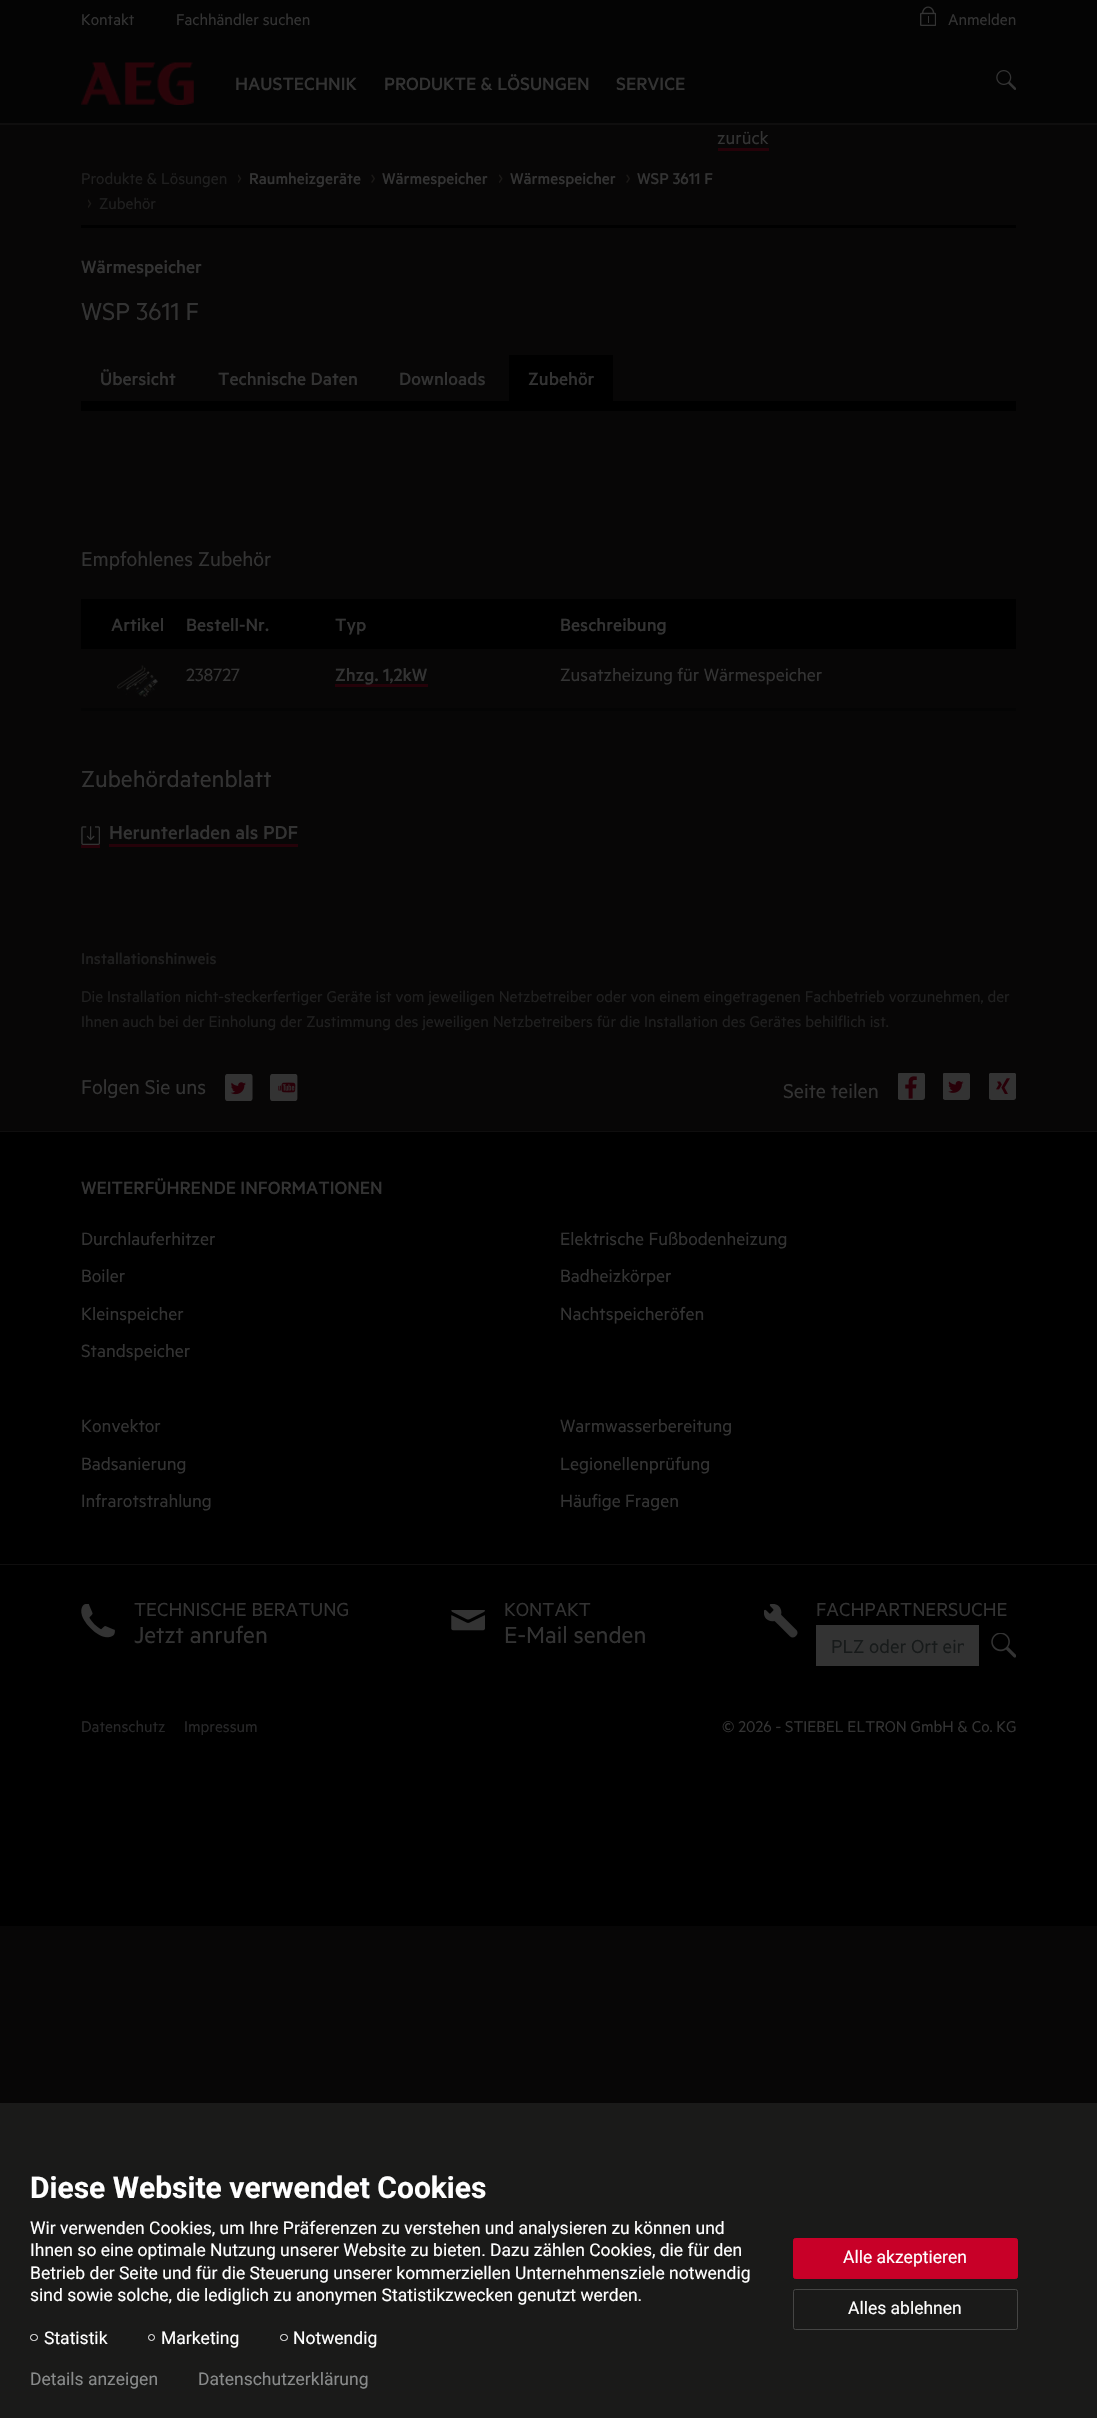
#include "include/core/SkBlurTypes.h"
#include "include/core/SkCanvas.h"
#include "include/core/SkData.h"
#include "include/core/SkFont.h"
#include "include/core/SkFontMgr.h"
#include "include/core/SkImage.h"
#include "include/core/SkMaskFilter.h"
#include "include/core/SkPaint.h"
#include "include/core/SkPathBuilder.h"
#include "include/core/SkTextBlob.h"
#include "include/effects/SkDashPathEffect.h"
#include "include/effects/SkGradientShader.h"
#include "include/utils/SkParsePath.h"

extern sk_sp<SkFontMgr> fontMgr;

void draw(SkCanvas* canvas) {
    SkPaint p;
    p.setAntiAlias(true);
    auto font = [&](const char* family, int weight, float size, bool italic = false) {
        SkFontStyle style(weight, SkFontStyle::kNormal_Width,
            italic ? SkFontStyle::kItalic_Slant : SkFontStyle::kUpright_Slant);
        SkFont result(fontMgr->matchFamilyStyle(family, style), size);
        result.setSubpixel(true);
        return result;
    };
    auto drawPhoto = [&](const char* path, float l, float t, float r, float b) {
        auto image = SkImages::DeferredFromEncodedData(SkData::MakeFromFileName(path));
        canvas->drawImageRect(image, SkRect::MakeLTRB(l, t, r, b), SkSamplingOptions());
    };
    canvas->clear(0xFF070606);
    p.setColor(0xFF040404);
    canvas->drawRect(SkRect::MakeLTRB(0, 0, 1097, 123), p);
    p.setColor(0xFF0F0E0E);
    canvas->drawRect(SkRect::MakeLTRB(0, 123, 1097, 125), p);
    auto font1 = font("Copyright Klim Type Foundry", 400, 17.5f);
    p.setColor(0xFF333333);
    canvas->drawString("Kontakt", 81, 25, font1, p);
    canvas->drawString("Fachhändler suchen", 176, 25, font1, p);
    drawPhoto("media/1.png", 920, 6, 936, 26);
    canvas->drawString("Anmelden", 948, 25, font1, p);
    drawPhoto("media/2.png", 81, 62, 194, 105);
    auto font2 = font("Copyright Klim Type Foundry", 500, 20);
    {
        const struct { const char* s; float x, y; } items[] = {
            {"HAUSTECHNIK", 235, 90},
            {"PRODUKTE & LÖSUNGEN", 384, 90},
            {"SERVICE", 616, 90},
        };
        for (auto [s, x, y] : items) {
            canvas->drawString(s, x, y, font2, p);
        }
    }
    drawPhoto("media/3.png", 996, 70, 1016, 90);
    auto font3 = font("Copyright Klim Type Foundry", 400, 20);
    canvas->drawString("zurück", 717, 144, font3, p);
    p.setColor(0xFF250209);
    canvas->drawRect(SkRect::MakeLTRB(718, 148, 769, 151), p);
    p.setColor(0xFF1F1F1F);
    canvas->drawString("Produkte & Lösungen", 81, 184, font1, p);
    drawPhoto("media/4.png", 238, 174, 242, 183);
    auto font4 = font("Copyright Klim Type Foundry", 500, 17.5f);
    p.setColor(0xFF333333);
    canvas->drawString("Raumheizgeräte", 249, 184, font4, p);
    drawPhoto("media/5.png", 371, 174, 375, 183);
    canvas->drawString("Wärmespeicher", 382, 184, font4, p);
    drawPhoto("media/6.png", 499, 174, 503, 183);
    canvas->drawString("Wärmespeicher", 510, 184, font4, p);
    drawPhoto("media/5.png", 626, 174, 630, 183);
    canvas->drawString("WSP 3611 F", 637, 184, font4, p);
    drawPhoto("media/4.png", 88, 199, 92, 208);
    p.setColor(0xFF1F1F1F);
    canvas->drawString("Zubehör", 99, 209, font1, p);
    p.setColor(0xFF000000);
    canvas->drawRect(SkRect::MakeLTRB(81, 225, 1016, 228), p);
    p.setColor(0xFF333333);
    canvas->drawString("Wärmespeicher", 81, 273, font2, p);
    auto font5 = font("Copyright Klim Type Foundry", 400, 27.5f);
    canvas->drawString("WSP 3611 F", 81, 320, font5, p);
    {
        const struct { const char* s; float x, y; } items[] = {
            {"Übersicht", 100, 385},
            {"Technische Daten", 218, 385},
            {"Downloads", 399, 385},
        };
        for (auto [s, x, y] : items) {
            canvas->drawString(s, x, y, font2, p);
        }
    }
    p.setColor(0xFF000000);
    canvas->drawRect(SkRect::MakeLTRB(509, 355, 613, 401), p);
    p.setColor(0xFF333333);
    canvas->drawString("Zubehör", 528, 385, font2, p);
    p.setColor(0xFF000000);
    canvas->drawRect(SkRect::MakeLTRB(81, 401, 1016, 411), p);
    auto font6 = font("Copyright Klim Type Foundry", 400, 22.5f);
    p.setColor(0xFF333333);
    canvas->drawString("Empfohlenes Zubehör", 81, 566, font6, p);
    p.setColor(0xFF000000);
    canvas->drawRect(SkRect::MakeLTRB(81, 599, 1016, 649), p);
    p.setColor(0xFF333333);
    {
        const struct { const char* s; float x, y; } items[] = {
            {"Artikel", 111, 631},
            {"Bestell-Nr.", 186, 631},
            {"Typ", 335, 631},
            {"Beschreibung", 560, 631},
        };
        for (auto [s, x, y] : items) {
            canvas->drawString(s, x, y, font2, p);
        }
    }
    p.setColor(0xFF040404);
    canvas->drawRect(SkRect::MakeLTRB(81, 708, 1016, 711), p);
    drawPhoto("media/7.png", 117, 665, 158, 697);
    p.setColor(0xFF333333);
    canvas->drawString("238727", 186, 681, font3, p);
    p.setColor(0xFF250209);
    canvas->drawRect(SkRect::MakeLTRB(335, 684, 428, 687), p);
    p.setColor(0xFF333333);
    canvas->drawString("Zhzg. 1,2kW", 335, 681, font2, p);
    canvas->drawString("Zusatzheizung für Wärmespeicher", 560, 681, font3, p);
    auto font7 = font("Copyright Klim Type Foundry", 400, 26.25f);
    canvas->drawString("Zubehördatenblatt", 81, 787, font7, p);
    p.setColor(0xFF250209);
    canvas->drawRect(SkRect::MakeLTRB(81, 845, 100, 848), p);
    canvas->drawRect(SkRect::MakeLTRB(109, 844, 298, 847), p);
    drawPhoto("media/8.png", 81, 826, 100, 845);
    auto font8 = font("Copyright Klim Type Foundry", 500, 21.25f);
    p.setColor(0xFF333333);
    canvas->drawString("Herunterladen als PDF", 109, 839, font8, p);
    p.setColor(0xFF1F1F1F);
    canvas->drawString("Installationshinweis", 81, 964, font4, p);
    canvas->drawString("Die Installation nicht-steckerfertiger Geräte ist vom jeweiligen Netzbetreiber oder von einem eingetragenen Fachbetrieb vorzunehmen, der", 81, 1002, font1, p);
    canvas->drawString("Ihnen auch bei der Einholung der Zustimmung des jeweiligen Netzbetreibers für die Installation des Gerätes behilflich ist.", 81, 1027, font1, p);
    p.setColor(0xFF333333);
    canvas->drawString("Folgen Sie uns", 81, 1094, font6, p);
    drawPhoto("media/9.png", 225, 1074, 253, 1101);
    drawPhoto("media/10.png", 270, 1074, 298, 1101);
    canvas->drawString("Seite teilen", 783, 1098, font6, p);
    drawPhoto("media/11.png", 898, 1073, 925, 1100);
    drawPhoto("media/12.png", 943, 1073, 970, 1100);
    drawPhoto("media/13.png", 989, 1073, 1016, 1100);
    p.setColor(0xFF000000);
    canvas->drawRect(SkRect::MakeLTRB(0, 1132, 1097, 1564), p);
    p.setColor(0xFF0F0E0E);
    canvas->drawRect(SkRect::MakeLTRB(0, 1131, 1097, 1132), p);
    p.setColor(0xFF333333);
    canvas->drawString("WEITERFÜHRENDE INFORMATIONEN", 81, 1194, font2, p);
    {
        const struct { const char* s; float x, y; } items[] = {
            {"Durchlauferhitzer", 81, 1245},
            {"Boiler", 81, 1282},
            {"Kleinspeicher", 81, 1320},
            {"Standspeicher", 81, 1357},
            {"Elektrische Fußbodenheizung", 560, 1245},
            {"Badheizkörper", 560, 1282},
            {"Nachtspeicheröfen", 560, 1320},
            {"Konvektor", 81, 1432},
            {"Badsanierung", 81, 1470},
            {"Infrarotstrahlung", 81, 1507},
            {"Warmwasserbereitung", 560, 1432},
            {"Legionellenprüfung", 560, 1470},
            {"Häufige Fragen", 560, 1507},
        };
        for (auto [s, x, y] : items) {
            canvas->drawString(s, x, y, font3, p);
        }
    }
    p.setColor(0xFF000000);
    canvas->drawRect(SkRect::MakeLTRB(0, 1565, 1097, 1926), p);
    p.setColor(0xFF0F0E0E);
    canvas->drawRect(SkRect::MakeLTRB(0, 1564, 1097, 1565), p);
    drawPhoto("media/14.png", 81, 1604, 115, 1638);
    auto font9 = font("Copyright Klim Type Foundry", 400, 21.25f);
    p.setColor(0xFF333333);
    canvas->drawString("TECHNISCHE BERATUNG", 134, 1616, font9, p);
    canvas->drawString("Jetzt anrufen", 134, 1643, font7, p);
    drawPhoto("media/15.png", 451, 1610, 485, 1631);
    canvas->drawString("KONTAKT", 504, 1616, font9, p);
    canvas->drawString("E-Mail senden", 504, 1643, font7, p);
    drawPhoto("media/16.png", 764, 1604, 798, 1638);
    canvas->drawString("FACHPARTNERSUCHE", 816, 1616, font9, p);
    canvas->drawRect(SkRect::MakeLTRB(816, 1625, 979, 1666), p);
    canvas->save();
    canvas->clipRect(SkRect::MakeLTRB(831, 1634, 964, 1656));
    p.setColor(0xFF171A1A);
    canvas->drawString("PLZ oder Ort ein", 831, 1653, font9, p);
    canvas->restore();
    drawPhoto("media/17.png", 991, 1633, 1016, 1658);
    p.setColor(0xFF272728);
    canvas->drawString("Datenschutz", 81, 1732, font1, p);
    canvas->drawString("Impressum", 184, 1732, font1, p);
    p.setColor(0xFF333333);
    canvas->drawString("© 2026 - STIEBEL ELTRON GmbH & Co. KG", 722, 1732, font1, p);
    p.setColor(0xFF1A1A19);
    canvas->drawRect(SkRect::MakeLTRB(0, 2103, 1097, 2418), p);
    auto font10 = font("Roboto", 700, 30);
    p.setColor(0xFFFFFFFF);
    canvas->drawString("Diese Website verwendet Cookies", 30, 2198, font10, p);
    auto font11 = font("Roboto", 400, 17.5f);
    {
        const struct { const char* s; float x, y; } items[] = {
            {"Wir verwenden Cookies, um Ihre Präferenzen zu verstehen und analysieren zu können und", 30, 2234},
            {"Ihnen so eine optimale Nutzung unserer Website zu bieten. Dazu zählen Cookies, die für den", 30, 2256},
            {"Betrieb der Seite und für die Steuerung unserer kommerziellen Unternehmensziele notwendig", 30, 2279},
            {"sind sowie solche, die lediglich zu anonymen Statistikzwecken genutzt werden.", 30, 2301},
        };
        for (auto [s, x, y] : items) {
            canvas->drawString(s, x, y, font11, p);
        }
    }
    p.setColor(0xFF131313);
    canvas->drawRoundRect(SkRect::MakeLTRB(30.5f, 2334.5f, 37.5f, 2340.5f), 3, 3, p);
    p.setStyle(SkPaint::kStroke_Style);
    p.setStrokeWidth(1);
    p.setColor(0xFFFFFFFF);
    canvas->drawRoundRect(SkRect::MakeLTRB(30.5f, 2334.5f, 37.5f, 2340.5f), 3, 3, p);
    p.setStyle(SkPaint::kFill_Style);
    canvas->drawString("Statistik", 44, 2344, font11, p);
    p.setColor(0xFF131313);
    canvas->drawCircle(151.5f, 2337.5f, 3, p);
    p.setStyle(SkPaint::kStroke_Style);
    p.setColor(0xFFFFFFFF);
    canvas->drawCircle(151.5f, 2337.5f, 3, p);
    p.setStyle(SkPaint::kFill_Style);
    canvas->drawString("Marketing", 161, 2344, font11, p);
    p.setColor(0xFF131313);
    canvas->drawRoundRect(SkRect::MakeLTRB(280.5f, 2334.5f, 287.5f, 2340.5f), 3, 3, p);
    p.setStyle(SkPaint::kStroke_Style);
    p.setColor(0xFFFFFFFF);
    canvas->drawRoundRect(SkRect::MakeLTRB(280.5f, 2334.5f, 287.5f, 2340.5f), 3, 3, p);
    p.setStyle(SkPaint::kFill_Style);
    canvas->drawString("Notwendig", 293, 2344, font11, p);
    p.setColor(0xFFC80028);
    canvas->drawRoundRect(SkRect::MakeLTRB(793.5f, 2238.5f, 1017.5f, 2278.5f), 2, 2, p);
    p.setStyle(SkPaint::kStroke_Style);
    canvas->drawRoundRect(SkRect::MakeLTRB(793.5f, 2238.5f, 1017.5f, 2278.5f), 2, 2, p);
    p.setStyle(SkPaint::kFill_Style);
    p.setColor(0xFFFFFFFF);
    canvas->drawString("Alle akzeptieren", 843, 2263, font11, p);
    p.setStyle(SkPaint::kStroke_Style);
    p.setColor(0xFF454544);
    canvas->drawRoundRect(SkRect::MakeLTRB(793.5f, 2289.5f, 1017.5f, 2329.5f), 2, 2, p);
    p.setStyle(SkPaint::kFill_Style);
    p.setColor(0xFFFFFFFF);
    canvas->drawString("Alles ablehnen", 848, 2314, font11, p);
    p.setColor(0xFF898B8B);
    canvas->drawString("Details anzeigen", 30, 2385, font11, p);
    canvas->drawString("Datenschutzerklärung", 198, 2385, font11, p);
}
